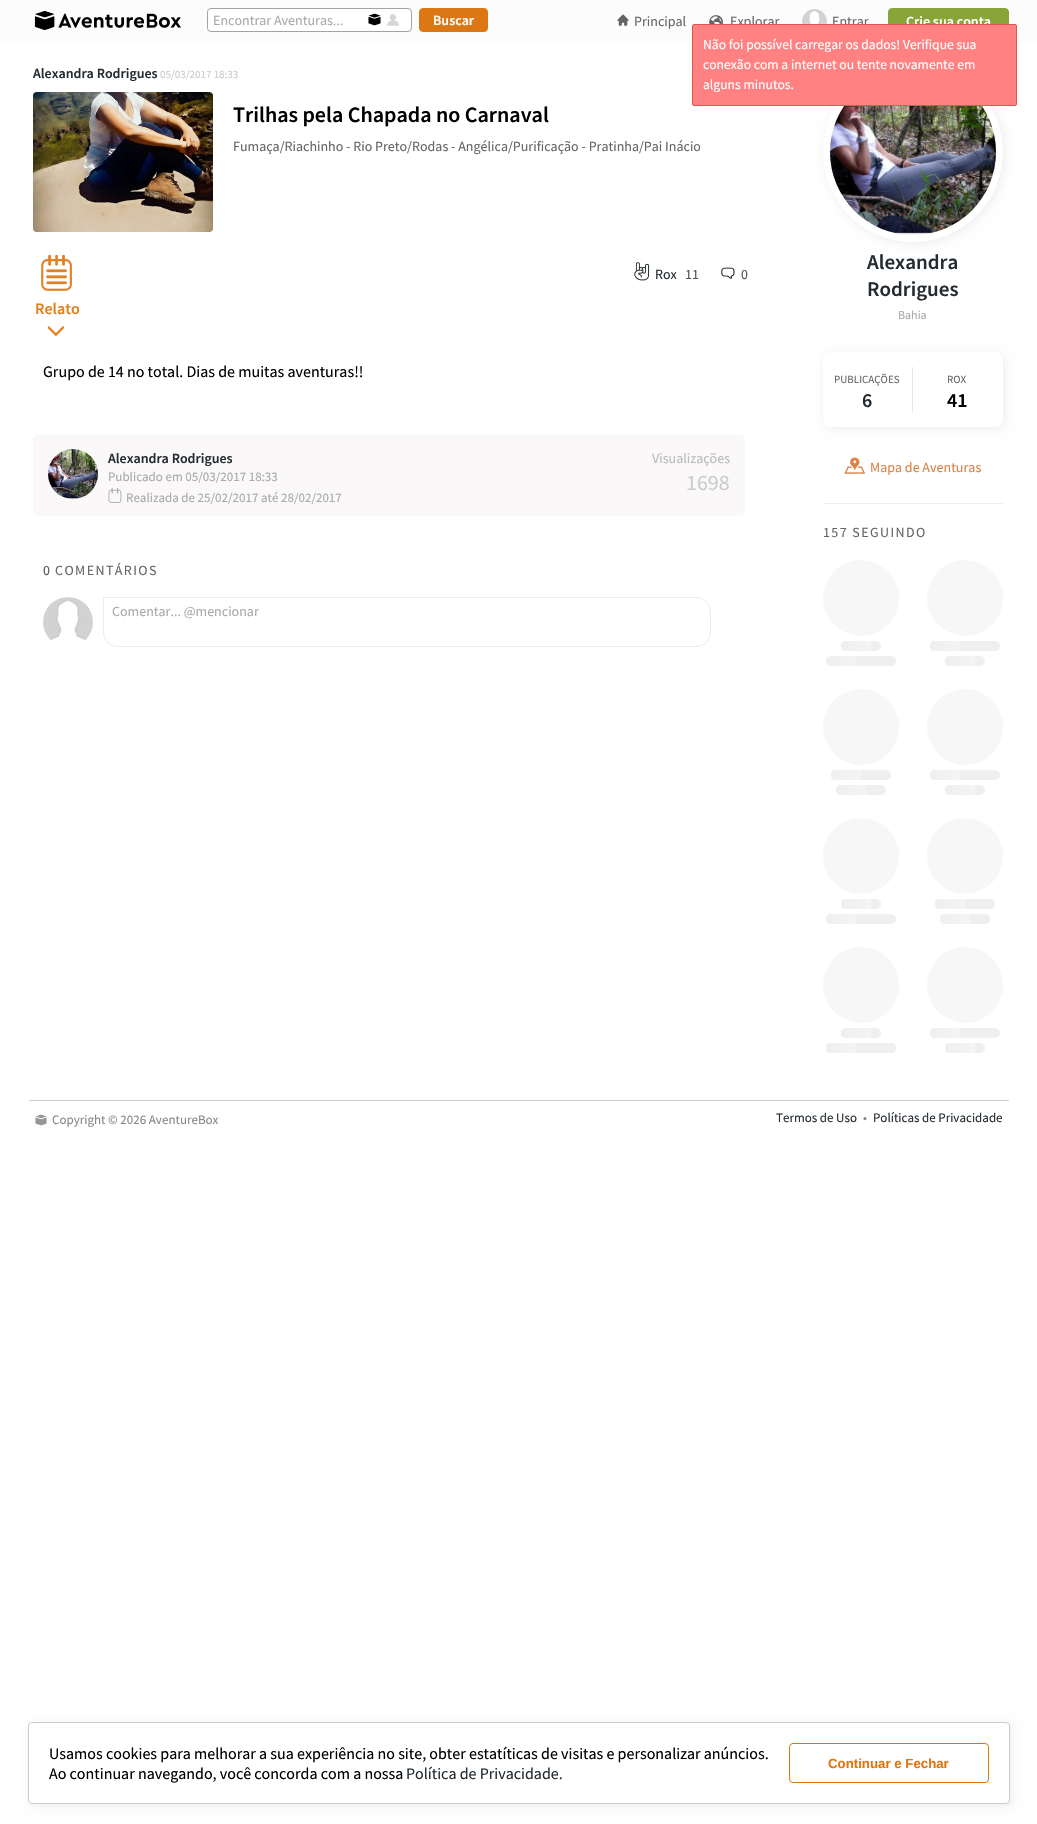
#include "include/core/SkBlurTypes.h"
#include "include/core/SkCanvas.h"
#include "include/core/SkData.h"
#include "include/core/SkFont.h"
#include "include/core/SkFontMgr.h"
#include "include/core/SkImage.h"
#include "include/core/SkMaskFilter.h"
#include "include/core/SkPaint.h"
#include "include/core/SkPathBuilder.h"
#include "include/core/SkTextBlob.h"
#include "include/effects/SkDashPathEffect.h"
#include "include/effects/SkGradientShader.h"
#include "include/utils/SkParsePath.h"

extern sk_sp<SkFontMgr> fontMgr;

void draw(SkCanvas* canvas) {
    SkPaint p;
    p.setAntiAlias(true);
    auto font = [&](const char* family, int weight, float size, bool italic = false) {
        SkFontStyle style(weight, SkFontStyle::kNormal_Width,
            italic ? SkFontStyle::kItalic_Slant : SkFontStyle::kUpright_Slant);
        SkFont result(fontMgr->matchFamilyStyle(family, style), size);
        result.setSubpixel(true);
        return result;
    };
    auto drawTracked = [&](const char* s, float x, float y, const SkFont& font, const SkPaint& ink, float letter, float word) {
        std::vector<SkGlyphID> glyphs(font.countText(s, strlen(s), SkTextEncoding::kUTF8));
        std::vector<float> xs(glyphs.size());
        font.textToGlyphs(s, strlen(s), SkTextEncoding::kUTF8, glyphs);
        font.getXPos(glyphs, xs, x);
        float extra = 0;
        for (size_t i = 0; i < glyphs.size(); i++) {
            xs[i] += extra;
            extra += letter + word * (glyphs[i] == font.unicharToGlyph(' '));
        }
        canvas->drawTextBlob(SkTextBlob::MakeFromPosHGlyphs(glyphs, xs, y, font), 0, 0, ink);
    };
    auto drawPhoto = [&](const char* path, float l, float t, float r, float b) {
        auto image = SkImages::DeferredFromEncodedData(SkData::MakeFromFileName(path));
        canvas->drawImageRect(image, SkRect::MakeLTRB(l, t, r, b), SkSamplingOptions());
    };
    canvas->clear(0xFFFFFFFF);
    p.setColor(0xFFFCFCFD);
    canvas->drawRect(SkRect::MakeLTRB(0, 0, 1037, 42), p);
    drawPhoto("media/1.png", 34, 11, 181, 30);
    p.setColor(0xFFFFFFFF);
    canvas->drawRoundRect(SkRect::MakeLTRB(207.5f, 8.5f, 411.5f, 31.5f), 3.5f, 3.5f, p);
    p.setStyle(SkPaint::kStroke_Style);
    p.setStrokeWidth(1);
    p.setColor(0xFFA4A2A2);
    canvas->drawRoundRect(SkRect::MakeLTRB(207.5f, 8.5f, 411.5f, 31.5f), 3.5f, 3.5f, p);
    auto font1 = font("Source Sans Pro", 400, 14);
    p.setStyle(SkPaint::kFill_Style);
    p.setColor(0xFFAAAAAA);
    canvas->drawString("Encontrar Aventuras...", 213, 25, font1, p);
    drawPhoto("media/2.png", 368, 13, 381, 26);
    drawPhoto("media/3.png", 386, 14, 399, 26);
    p.setColor(0xFFDB7715);
    canvas->drawRoundRect(SkRect::MakeLTRB(419.5f, 8.5f, 487.5f, 31.5f), 3.5f, 3.5f, p);
    p.setStyle(SkPaint::kStroke_Style);
    canvas->drawRoundRect(SkRect::MakeLTRB(419.5f, 8.5f, 487.5f, 31.5f), 3.5f, 3.5f, p);
    auto font2 = font("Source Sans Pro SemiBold", 600, 14);
    p.setStyle(SkPaint::kFill_Style);
    p.setColor(0xFFFFFFFF);
    canvas->drawString("Buscar", 433, 25, font2, p);
    drawPhoto("media/4.png", 617, 14, 629, 26);
    p.setColor(0xFF666666);
    canvas->drawString("Principal", 634, 26, font1, p);
    drawPhoto("media/5.png", 709, 15, 723, 24);
    canvas->drawString("Explorar", 730, 26, font1, p);
    drawPhoto("media/6.png", 802, 9, 827, 24);
    canvas->drawString("Entrar", 832, 26, font1, p);
    p.setColor(0xFF88A539);
    canvas->drawRoundRect(SkRect::MakeLTRB(888.5f, 8.5f, 1008.5f, 33.5f), 3.5f, 3.5f, p);
    p.setStyle(SkPaint::kStroke_Style);
    canvas->drawRoundRect(SkRect::MakeLTRB(888.5f, 8.5f, 1008.5f, 33.5f), 3.5f, 3.5f, p);
    p.setStyle(SkPaint::kFill_Style);
    p.setColor(0xFFFFFFFF);
    canvas->drawString("Crie sua conta", 906, 26, font2, p);
    p.setColor(0x0F000000);
    p.setMaskFilter(SkMaskFilter::MakeBlur(kNormal_SkBlurStyle, 5));
    canvas->drawRoundRect(SkRect::MakeLTRB(824, 63, 1006, 245), 91, 91, p);
    p.setMaskFilter(nullptr);
    p.setColor(0xFFF7F7F7);
    canvas->drawCircle(913, 152, 86.5f, p);
    p.setStyle(SkPaint::kStroke_Style);
    p.setStrokeWidth(7);
    p.setColor(0xFFFFFFFF);
    canvas->drawCircle(913, 152, 86.5f, p);
    p.setStyle(SkPaint::kFill_Style);
    p.setColor(0xFFFF8181);
    canvas->drawRoundRect(SkRect::MakeLTRB(692.5f, 24.5f, 1016.5f, 105.5f), 1.5f, 1.5f, p);
    p.setStyle(SkPaint::kStroke_Style);
    p.setStrokeWidth(1);
    p.setColor(0xFFE25353);
    canvas->drawRoundRect(SkRect::MakeLTRB(692.5f, 24.5f, 1016.5f, 105.5f), 1.5f, 1.5f, p);
    auto font3 = font("Source Sans Pro", 400, 13.6f);
    p.setStyle(SkPaint::kFill_Style);
    p.setColor(0xFFFFFFFF);
    {
        const struct { const char* s; float x, y; } items[] = {
            {"Não foi possível carregar os dados! Verifique sua", 703, 49},
            {"conexão com a internet ou tente novamente em", 703, 69},
            {"alguns minutos.", 703, 89},
        };
        for (auto [s, x, y] : items) {
            canvas->drawString(s, x, y, font3, p);
        }
    }
    p.setColor(0xFF242C31);
    canvas->drawString("Alexandra Rodrigues", 33, 78, font2, p);
    auto font4 = font("Source Sans Pro", 400, 11);
    p.setColor(0xFFCCCCCC);
    canvas->drawString("05/03/2017 18:33", 160, 78, font4, p);
    drawPhoto("media/7.png", 33, 92, 213, 232);
    auto font5 = font("Source Sans Pro SemiBold", 600, 22);
    p.setColor(0xFF000000);
    canvas->drawString("Trilhas pela Chapada no Carnaval", 233, 122, font5, p);
    p.setColor(0xFF666666);
    canvas->drawString("Fumaça/Riachinho - Rio Preto/Rodas - Angélica/Purificação - Pratinha/Pai Inácio", 233, 151, font1, p);
    drawPhoto("media/8.png", 634, 262, 650, 281);
    p.setColor(0xFF242C31);
    canvas->drawString("Rox", 655, 279, font1, p);
    p.setColor(0xFF555555);
    canvas->drawString("11", 685, 279, font1, p);
    drawPhoto("media/9.png", 721, 267, 735, 279);
    canvas->drawString("0", 741, 279, font1, p);
    drawPhoto("media/10.png", 41, 254, 72, 291);
    auto font6 = font("Source Sans Pro SemiBold", 600, 16);
    p.setColor(0xFFE28023);
    canvas->drawString("Relato", 35, 314, font6, p);
    drawPhoto("media/11.png", 47, 326, 65, 336);
    auto font7 = font("Source Sans Pro", 400, 16);
    p.setColor(0xFF000000);
    canvas->drawString("Grupo de 14 no total. Dias de muitas aventuras!!", 43, 377, font7, p);
    p.setColor(0xFFFAF8F8);
    canvas->drawRoundRect(SkRect::MakeLTRB(33, 434, 745, 516), 6, 6, p);
    p.setColor(0xFFECECEC);
    canvas->drawCircle(73, 474, 25, p);
    drawPhoto("media/12.png", 48, 449, 98, 499);
    p.setColor(0xFF242C31);
    canvas->drawString("Alexandra Rodrigues", 108, 463, font2, p);
    auto font8 = font("Source Sans Pro", 400, 13);
    p.setColor(0xFFAAAAAA);
    canvas->drawString("Publicado em 05/03/2017 18:33", 108, 481, font8, p);
    drawPhoto("media/13.png", 108, 488, 122, 503);
    canvas->drawString("Realizada de 25/02/2017 até 28/02/2017", 126, 502, font8, p);
    p.setColor(0xFFBBBBBB);
    canvas->drawString("Visualizações", 652, 463, font1, p);
    auto font9 = font("Source Sans Pro", 400, 22);
    p.setColor(0xFFCCCCCC);
    canvas->drawString("1698", 686, 490, font9, p);
    p.setColor(0xFF555555);
    drawTracked("0", 43, 575, font1, p, 1.4f, 0);
    p.setColor(0xFF666666);
    drawTracked("COMENTÁRIOS", 55, 575, font1, p, 1.4f, 0);
    p.setColor(0xFFF7F7F7);
    canvas->drawCircle(68, 622, 25, p);
    drawPhoto("media/14.png", 43, 597, 93, 647);
    p.setStyle(SkPaint::kStroke_Style);
    p.setColor(0xFFECEBEB);
    canvas->drawPath(SkPathBuilder().moveTo(103.5f, 597.5f).lineTo(696, 597.5f).cubicTo(704, 597.5f, 710.5f, 604, 710.5f, 612).lineTo(710.5f, 632).cubicTo(710.5f, 640, 704, 646.5f, 696, 646.5f).lineTo(118, 646.5f).cubicTo(110, 646.5f, 103.5f, 640, 103.5f, 632).close().detach(), p);
    p.setStyle(SkPaint::kFill_Style);
    p.setColor(0xFFAAAAAA);
    canvas->drawString("Comentar... @mencionar", 112, 616, font1, p);
    drawPhoto("media/15.png", 830, 106, 996, 235);
    auto font10 = font("Source Sans Pro SemiBold", 600, 21);
    p.setColor(0xFF242C31);
    canvas->drawString("Alexandra", 867, 269, font10, p);
    canvas->drawString("Rodrigues", 867, 296, font10, p);
    auto font11 = font("Source Sans Pro", 400, 12);
    p.setColor(0xFFAAAAAA);
    canvas->drawString("Bahia", 898, 319, font11, p);
    canvas->save();
    canvas->clipPath(SkPathBuilder(SkPathFillType::kEvenOdd).moveTo(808, 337).lineTo(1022, 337).lineTo(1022, 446).lineTo(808, 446).close().moveTo(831, 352).lineTo(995, 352).cubicTo(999.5f, 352, 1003, 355.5f, 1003, 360).lineTo(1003, 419).cubicTo(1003, 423.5f, 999.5f, 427, 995, 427).lineTo(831, 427).cubicTo(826.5f, 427, 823, 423.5f, 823, 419).lineTo(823, 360).cubicTo(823, 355.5f, 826.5f, 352, 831, 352).close().detach(), true);
    p.setColor(0x0F000000);
    p.setMaskFilter(SkMaskFilter::MakeBlur(kNormal_SkBlurStyle, 5));
    canvas->drawRoundRect(SkRect::MakeLTRB(824, 353, 1006, 430), 9, 9, p);
    p.setMaskFilter(nullptr);
    canvas->restore();
    p.setColor(0xFFE8E8E8);
    canvas->drawRect(SkRect::MakeLTRB(912, 367, 913, 412), p);
    p.setColor(0xFF666666);
    canvas->drawString("PUBLICAÇÕES", 834, 383, font4, p);
    auto font12 = font("Source Sans Pro SemiBold", 600, 20);
    p.setColor(0xFF242C31);
    canvas->drawString("6", 862, 407, font12, p);
    p.setColor(0xFF666666);
    canvas->drawString("ROX", 947, 383, font4, p);
    p.setColor(0xFF000000);
    canvas->drawString("41", 947, 407, font12, p);
    drawPhoto("media/16.png", 844, 457, 866, 474);
    p.setColor(0xFFDA8345);
    canvas->drawString("Mapa de Aventuras", 870, 472, font1, p);
    p.setColor(0xFFEEEEEE);
    canvas->drawRect(SkRect::MakeLTRB(823, 503, 1003, 504), p);
    p.setColor(0xFF666666);
    drawTracked("157 SEGUINDO", 823, 537, font1, p, 1.4f, 0);
    p.setColor(0xFFF7F7F7);
    canvas->drawCircle(861, 598, 38, p);
    p.setColor(0xFFEFEFEF);
    canvas->drawRoundRect(SkRect::MakeLTRB(841, 641, 881, 651), 5, 5, p);
    {
        const SkColor colors[] = {0xFFEFEFEF, 0xFFF7F6F6, 0xFFEFEFEF};
        const float stops[] = {0, 0.2f, 1};
        const SkPoint ends[] = {{841, 646}, {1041, 646}};
        p.setShader(SkGradientShader::MakeLinear(ends, colors, stops, 3, SkTileMode::kClamp));
        p.setAlpha(255);
    }
    canvas->drawPath(SkPathBuilder().moveTo(846, 641).lineTo(871, 641).lineTo(871, 651).lineTo(846, 651).cubicTo(843, 651, 841, 649, 841, 646).cubicTo(841, 643, 843, 641, 846, 641).close().detach(), p);
    p.setShader(nullptr);
    p.setColor(0xFFEFEFEF);
    canvas->drawRoundRect(SkRect::MakeLTRB(826, 656, 896, 666), 5, 5, p);
    {
        const SkColor colors[] = {0xFFEFEFEF, 0xFFF7F6F6, 0xFFEFEFEF};
        const float stops[] = {0, 0.2f, 1};
        const SkPoint ends[] = {{826, 661}, {1026, 661}};
        p.setShader(SkGradientShader::MakeLinear(ends, colors, stops, 3, SkTileMode::kClamp));
        p.setAlpha(255);
    }
    canvas->drawPath(SkPathBuilder().moveTo(831, 656).lineTo(856, 656).lineTo(856, 666).lineTo(831, 666).cubicTo(828, 666, 826, 664, 826, 661).cubicTo(826, 658, 828, 656, 831, 656).close().detach(), p);
    p.setShader(nullptr);
    p.setColor(0xFFF7F7F7);
    canvas->drawCircle(965, 598, 38, p);
    p.setColor(0xFFEFEFEF);
    canvas->drawRoundRect(SkRect::MakeLTRB(930, 641, 1000, 651), 5, 5, p);
    {
        const SkColor colors[] = {0xFFEFEFEF, 0xFFF7F6F6, 0xFFEFEFEF};
        const float stops[] = {0, 0.2f, 1};
        const SkPoint ends[] = {{930, 646}, {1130, 646}};
        p.setShader(SkGradientShader::MakeLinear(ends, colors, stops, 3, SkTileMode::kClamp));
        p.setAlpha(255);
    }
    canvas->drawPath(SkPathBuilder().moveTo(935, 641).lineTo(960, 641).lineTo(960, 651).lineTo(935, 651).cubicTo(932, 651, 930, 649, 930, 646).cubicTo(930, 643, 932, 641, 935, 641).close().detach(), p);
    p.setShader(nullptr);
    p.setColor(0xFFEFEFEF);
    canvas->drawRoundRect(SkRect::MakeLTRB(945, 656, 985, 666), 5, 5, p);
    {
        const SkColor colors[] = {0xFFEFEFEF, 0xFFF7F6F6, 0xFFEFEFEF};
        const float stops[] = {0, 0.2f, 1};
        const SkPoint ends[] = {{945, 661}, {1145, 661}};
        p.setShader(SkGradientShader::MakeLinear(ends, colors, stops, 3, SkTileMode::kClamp));
        p.setAlpha(255);
    }
    canvas->drawPath(SkPathBuilder().moveTo(950, 656).lineTo(975, 656).lineTo(975, 666).lineTo(950, 666).cubicTo(947, 666, 945, 664, 945, 661).cubicTo(945, 658, 947, 656, 950, 656).close().detach(), p);
    p.setShader(nullptr);
    p.setColor(0xFFF7F7F7);
    canvas->drawCircle(861, 727, 38, p);
    p.setColor(0xFFEFEFEF);
    canvas->drawRoundRect(SkRect::MakeLTRB(831, 770, 891, 780), 5, 5, p);
    {
        const SkColor colors[] = {0xFFEFEFEF, 0xFFF7F6F6, 0xFFEFEFEF};
        const float stops[] = {0, 0.2f, 1};
        const SkPoint ends[] = {{831, 775}, {1031, 775}};
        p.setShader(SkGradientShader::MakeLinear(ends, colors, stops, 3, SkTileMode::kClamp));
        p.setAlpha(255);
    }
    canvas->drawPath(SkPathBuilder().moveTo(836, 770).lineTo(861, 770).lineTo(861, 780).lineTo(836, 780).cubicTo(833, 780, 831, 778, 831, 775).cubicTo(831, 772, 833, 770, 836, 770).close().detach(), p);
    p.setShader(nullptr);
    p.setColor(0xFFEFEFEF);
    canvas->drawRoundRect(SkRect::MakeLTRB(836, 785, 886, 795), 5, 5, p);
    {
        const SkColor colors[] = {0xFFEFEFEF, 0xFFF7F6F6, 0xFFEFEFEF};
        const float stops[] = {0, 0.2f, 1};
        const SkPoint ends[] = {{836, 790}, {1036, 790}};
        p.setShader(SkGradientShader::MakeLinear(ends, colors, stops, 3, SkTileMode::kClamp));
        p.setAlpha(255);
    }
    canvas->drawPath(SkPathBuilder().moveTo(841, 785).lineTo(866, 785).lineTo(866, 795).lineTo(841, 795).cubicTo(838, 795, 836, 793, 836, 790).cubicTo(836, 787, 838, 785, 841, 785).close().detach(), p);
    p.setShader(nullptr);
    p.setColor(0xFFF7F7F7);
    canvas->drawCircle(965, 727, 38, p);
    p.setColor(0xFFEFEFEF);
    canvas->drawRoundRect(SkRect::MakeLTRB(930, 770, 1000, 780), 5, 5, p);
    {
        const SkColor colors[] = {0xFFEFEFEF, 0xFFF7F6F6, 0xFFEFEFEF};
        const float stops[] = {0, 0.2f, 1};
        const SkPoint ends[] = {{930, 775}, {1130, 775}};
        p.setShader(SkGradientShader::MakeLinear(ends, colors, stops, 3, SkTileMode::kClamp));
        p.setAlpha(255);
    }
    canvas->drawPath(SkPathBuilder().moveTo(935, 770).lineTo(960, 770).lineTo(960, 780).lineTo(935, 780).cubicTo(932, 780, 930, 778, 930, 775).cubicTo(930, 772, 932, 770, 935, 770).close().detach(), p);
    p.setShader(nullptr);
    p.setColor(0xFFEFEFEF);
    canvas->drawRoundRect(SkRect::MakeLTRB(945, 785, 985, 795), 5, 5, p);
    {
        const SkColor colors[] = {0xFFEFEFEF, 0xFFF7F6F6, 0xFFEFEFEF};
        const float stops[] = {0, 0.2f, 1};
        const SkPoint ends[] = {{945, 790}, {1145, 790}};
        p.setShader(SkGradientShader::MakeLinear(ends, colors, stops, 3, SkTileMode::kClamp));
        p.setAlpha(255);
    }
    canvas->drawPath(SkPathBuilder().moveTo(950, 785).lineTo(975, 785).lineTo(975, 795).lineTo(950, 795).cubicTo(947, 795, 945, 793, 945, 790).cubicTo(945, 787, 947, 785, 950, 785).close().detach(), p);
    p.setShader(nullptr);
    p.setColor(0xFFF7F7F7);
    canvas->drawCircle(861, 856, 38, p);
    p.setColor(0xFFEFEFEF);
    canvas->drawRoundRect(SkRect::MakeLTRB(841, 899, 881, 909), 5, 5, p);
    {
        const SkColor colors[] = {0xFFEFEFEF, 0xFFF7F6F6, 0xFFEFEFEF};
        const float stops[] = {0, 0.2f, 1};
        const SkPoint ends[] = {{841, 904}, {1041, 904}};
        p.setShader(SkGradientShader::MakeLinear(ends, colors, stops, 3, SkTileMode::kClamp));
        p.setAlpha(255);
    }
    canvas->drawPath(SkPathBuilder().moveTo(846, 899).lineTo(871, 899).lineTo(871, 909).lineTo(846, 909).cubicTo(843, 909, 841, 907, 841, 904).cubicTo(841, 901, 843, 899, 846, 899).close().detach(), p);
    p.setShader(nullptr);
    p.setColor(0xFFEFEFEF);
    canvas->drawRoundRect(SkRect::MakeLTRB(826, 914, 896, 924), 5, 5, p);
    {
        const SkColor colors[] = {0xFFEFEFEF, 0xFFF7F6F6, 0xFFEFEFEF};
        const float stops[] = {0, 0.2f, 1};
        const SkPoint ends[] = {{826, 919}, {1026, 919}};
        p.setShader(SkGradientShader::MakeLinear(ends, colors, stops, 3, SkTileMode::kClamp));
        p.setAlpha(255);
    }
    canvas->drawPath(SkPathBuilder().moveTo(831, 914).lineTo(856, 914).lineTo(856, 924).lineTo(831, 924).cubicTo(828, 924, 826, 922, 826, 919).cubicTo(826, 916, 828, 914, 831, 914).close().detach(), p);
    p.setShader(nullptr);
    p.setColor(0xFFF7F7F7);
    canvas->drawCircle(965, 856, 38, p);
    p.setColor(0xFFEFEFEF);
    canvas->drawRoundRect(SkRect::MakeLTRB(935, 899, 995, 909), 5, 5, p);
    {
        const SkColor colors[] = {0xFFEFEFEF, 0xFFF7F6F6, 0xFFEFEFEF};
        const float stops[] = {0, 0.2f, 1};
        const SkPoint ends[] = {{935, 904}, {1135, 904}};
        p.setShader(SkGradientShader::MakeLinear(ends, colors, stops, 3, SkTileMode::kClamp));
        p.setAlpha(255);
    }
    canvas->drawPath(SkPathBuilder().moveTo(940, 899).lineTo(965, 899).lineTo(965, 909).lineTo(940, 909).cubicTo(937, 909, 935, 907, 935, 904).cubicTo(935, 901, 937, 899, 940, 899).close().detach(), p);
    p.setShader(nullptr);
    p.setColor(0xFFEFEFEF);
    canvas->drawRoundRect(SkRect::MakeLTRB(940, 914, 990, 924), 5, 5, p);
    {
        const SkColor colors[] = {0xFFEFEFEF, 0xFFF7F6F6, 0xFFEFEFEF};
        const float stops[] = {0, 0.2f, 1};
        const SkPoint ends[] = {{940, 919}, {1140, 919}};
        p.setShader(SkGradientShader::MakeLinear(ends, colors, stops, 3, SkTileMode::kClamp));
        p.setAlpha(255);
    }
    canvas->drawPath(SkPathBuilder().moveTo(945, 914).lineTo(970, 914).lineTo(970, 924).lineTo(945, 924).cubicTo(942, 924, 940, 922, 940, 919).cubicTo(940, 916, 942, 914, 945, 914).close().detach(), p);
    p.setShader(nullptr);
    p.setColor(0xFFF7F7F7);
    canvas->drawCircle(861, 985, 38, p);
    p.setColor(0xFFEFEFEF);
    canvas->drawRoundRect(SkRect::MakeLTRB(841, 1028, 881, 1038), 5, 5, p);
    {
        const SkColor colors[] = {0xFFEFEFEF, 0xFFF7F6F6, 0xFFEFEFEF};
        const float stops[] = {0, 0.2f, 1};
        const SkPoint ends[] = {{841, 1033}, {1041, 1033}};
        p.setShader(SkGradientShader::MakeLinear(ends, colors, stops, 3, SkTileMode::kClamp));
        p.setAlpha(255);
    }
    canvas->drawPath(SkPathBuilder().moveTo(846, 1028).lineTo(871, 1028).lineTo(871, 1038).lineTo(846, 1038).cubicTo(843, 1038, 841, 1036, 841, 1033).cubicTo(841, 1030, 843, 1028, 846, 1028).close().detach(), p);
    p.setShader(nullptr);
    p.setColor(0xFFEFEFEF);
    canvas->drawRoundRect(SkRect::MakeLTRB(826, 1043, 896, 1053), 5, 5, p);
    {
        const SkColor colors[] = {0xFFEFEFEF, 0xFFF7F6F6, 0xFFEFEFEF};
        const float stops[] = {0, 0.2f, 1};
        const SkPoint ends[] = {{826, 1048}, {1026, 1048}};
        p.setShader(SkGradientShader::MakeLinear(ends, colors, stops, 3, SkTileMode::kClamp));
        p.setAlpha(255);
    }
    canvas->drawPath(SkPathBuilder().moveTo(831, 1043).lineTo(856, 1043).lineTo(856, 1053).lineTo(831, 1053).cubicTo(828, 1053, 826, 1051, 826, 1048).cubicTo(826, 1045, 828, 1043, 831, 1043).close().detach(), p);
    p.setShader(nullptr);
    p.setColor(0xFFF7F7F7);
    canvas->drawCircle(965, 985, 38, p);
    p.setColor(0xFFEFEFEF);
    canvas->drawRoundRect(SkRect::MakeLTRB(930, 1028, 1000, 1038), 5, 5, p);
    {
        const SkColor colors[] = {0xFFEFEFEF, 0xFFF7F6F6, 0xFFEFEFEF};
        const float stops[] = {0, 0.2f, 1};
        const SkPoint ends[] = {{930, 1033}, {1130, 1033}};
        p.setShader(SkGradientShader::MakeLinear(ends, colors, stops, 3, SkTileMode::kClamp));
        p.setAlpha(255);
    }
    canvas->drawPath(SkPathBuilder().moveTo(935, 1028).lineTo(960, 1028).lineTo(960, 1038).lineTo(935, 1038).cubicTo(932, 1038, 930, 1036, 930, 1033).cubicTo(930, 1030, 932, 1028, 935, 1028).close().detach(), p);
    p.setShader(nullptr);
    p.setColor(0xFFEFEFEF);
    canvas->drawRoundRect(SkRect::MakeLTRB(945, 1043, 985, 1053), 5, 5, p);
    {
        const SkColor colors[] = {0xFFEFEFEF, 0xFFF7F6F6, 0xFFEFEFEF};
        const float stops[] = {0, 0.2f, 1};
        const SkPoint ends[] = {{945, 1048}, {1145, 1048}};
        p.setShader(SkGradientShader::MakeLinear(ends, colors, stops, 3, SkTileMode::kClamp));
        p.setAlpha(255);
    }
    canvas->drawPath(SkPathBuilder().moveTo(950, 1043).lineTo(975, 1043).lineTo(975, 1053).lineTo(950, 1053).cubicTo(947, 1053, 945, 1051, 945, 1048).cubicTo(945, 1045, 947, 1043, 950, 1043).close().detach(), p);
    p.setShader(nullptr);
    p.setColor(0xFFCCCCCC);
    canvas->drawRect(SkRect::MakeLTRB(29, 1100, 1009, 1101), p);
    drawPhoto("media/17.png", 35, 1114, 47, 1126);
    p.setColor(0xFF888888);
    canvas->drawString("Copyright © 2026 AventureBox", 52, 1124, font8, p);
    p.setColor(0xFF242C31);
    canvas->drawString("Termos de Uso", 776, 1122, font8, p);
    p.setColor(0xFF888888);
    canvas->drawString("•", 863, 1122, font8, p);
    p.setColor(0xFF242C31);
    canvas->drawString("Políticas de Privacidade", 873, 1122, font8, p);
    p.setColor(0x0F000000);
    p.setMaskFilter(SkMaskFilter::MakeBlur(kNormal_SkBlurStyle, 5));
    canvas->drawRoundRect(SkRect::MakeLTRB(29, 1723, 1013, 1807), 5, 5, p);
    p.setMaskFilter(nullptr);
    p.setColor(0xFFFFFFFF);
    canvas->drawRoundRect(SkRect::MakeLTRB(28.5f, 1722.5f, 1009.5f, 1803.5f), 3.5f, 3.5f, p);
    p.setStyle(SkPaint::kStroke_Style);
    p.setColor(0xFFCCCCCC);
    canvas->drawRoundRect(SkRect::MakeLTRB(28.5f, 1722.5f, 1009.5f, 1803.5f), 3.5f, 3.5f, p);
    p.setStyle(SkPaint::kFill_Style);
    p.setColor(0xFF000000);
    canvas->drawString("Usamos cookies para melhorar a sua experiência no site, obter estatíticas de visitas e personalizar anúncios.", 49, 1759, font7, p);
    canvas->drawString("Ao continuar navegando, você concorda com a nossa", 49, 1779, font7, p);
    p.setColor(0xFF242C31);
    canvas->drawString("Política de Privacidade.", 406, 1779, font7, p);
    p.setStyle(SkPaint::kStroke_Style);
    p.setColor(0xFFE0750E);
    canvas->drawRoundRect(SkRect::MakeLTRB(789.5f, 1743.5f, 988.5f, 1782.5f), 3.5f, 3.5f, p);
    auto font13 = font("Liberation Sans", 700, 13.25f);
    p.setStyle(SkPaint::kFill_Style);
    canvas->drawString("Continuar e Fechar", 828, 1768, font13, p);
}
